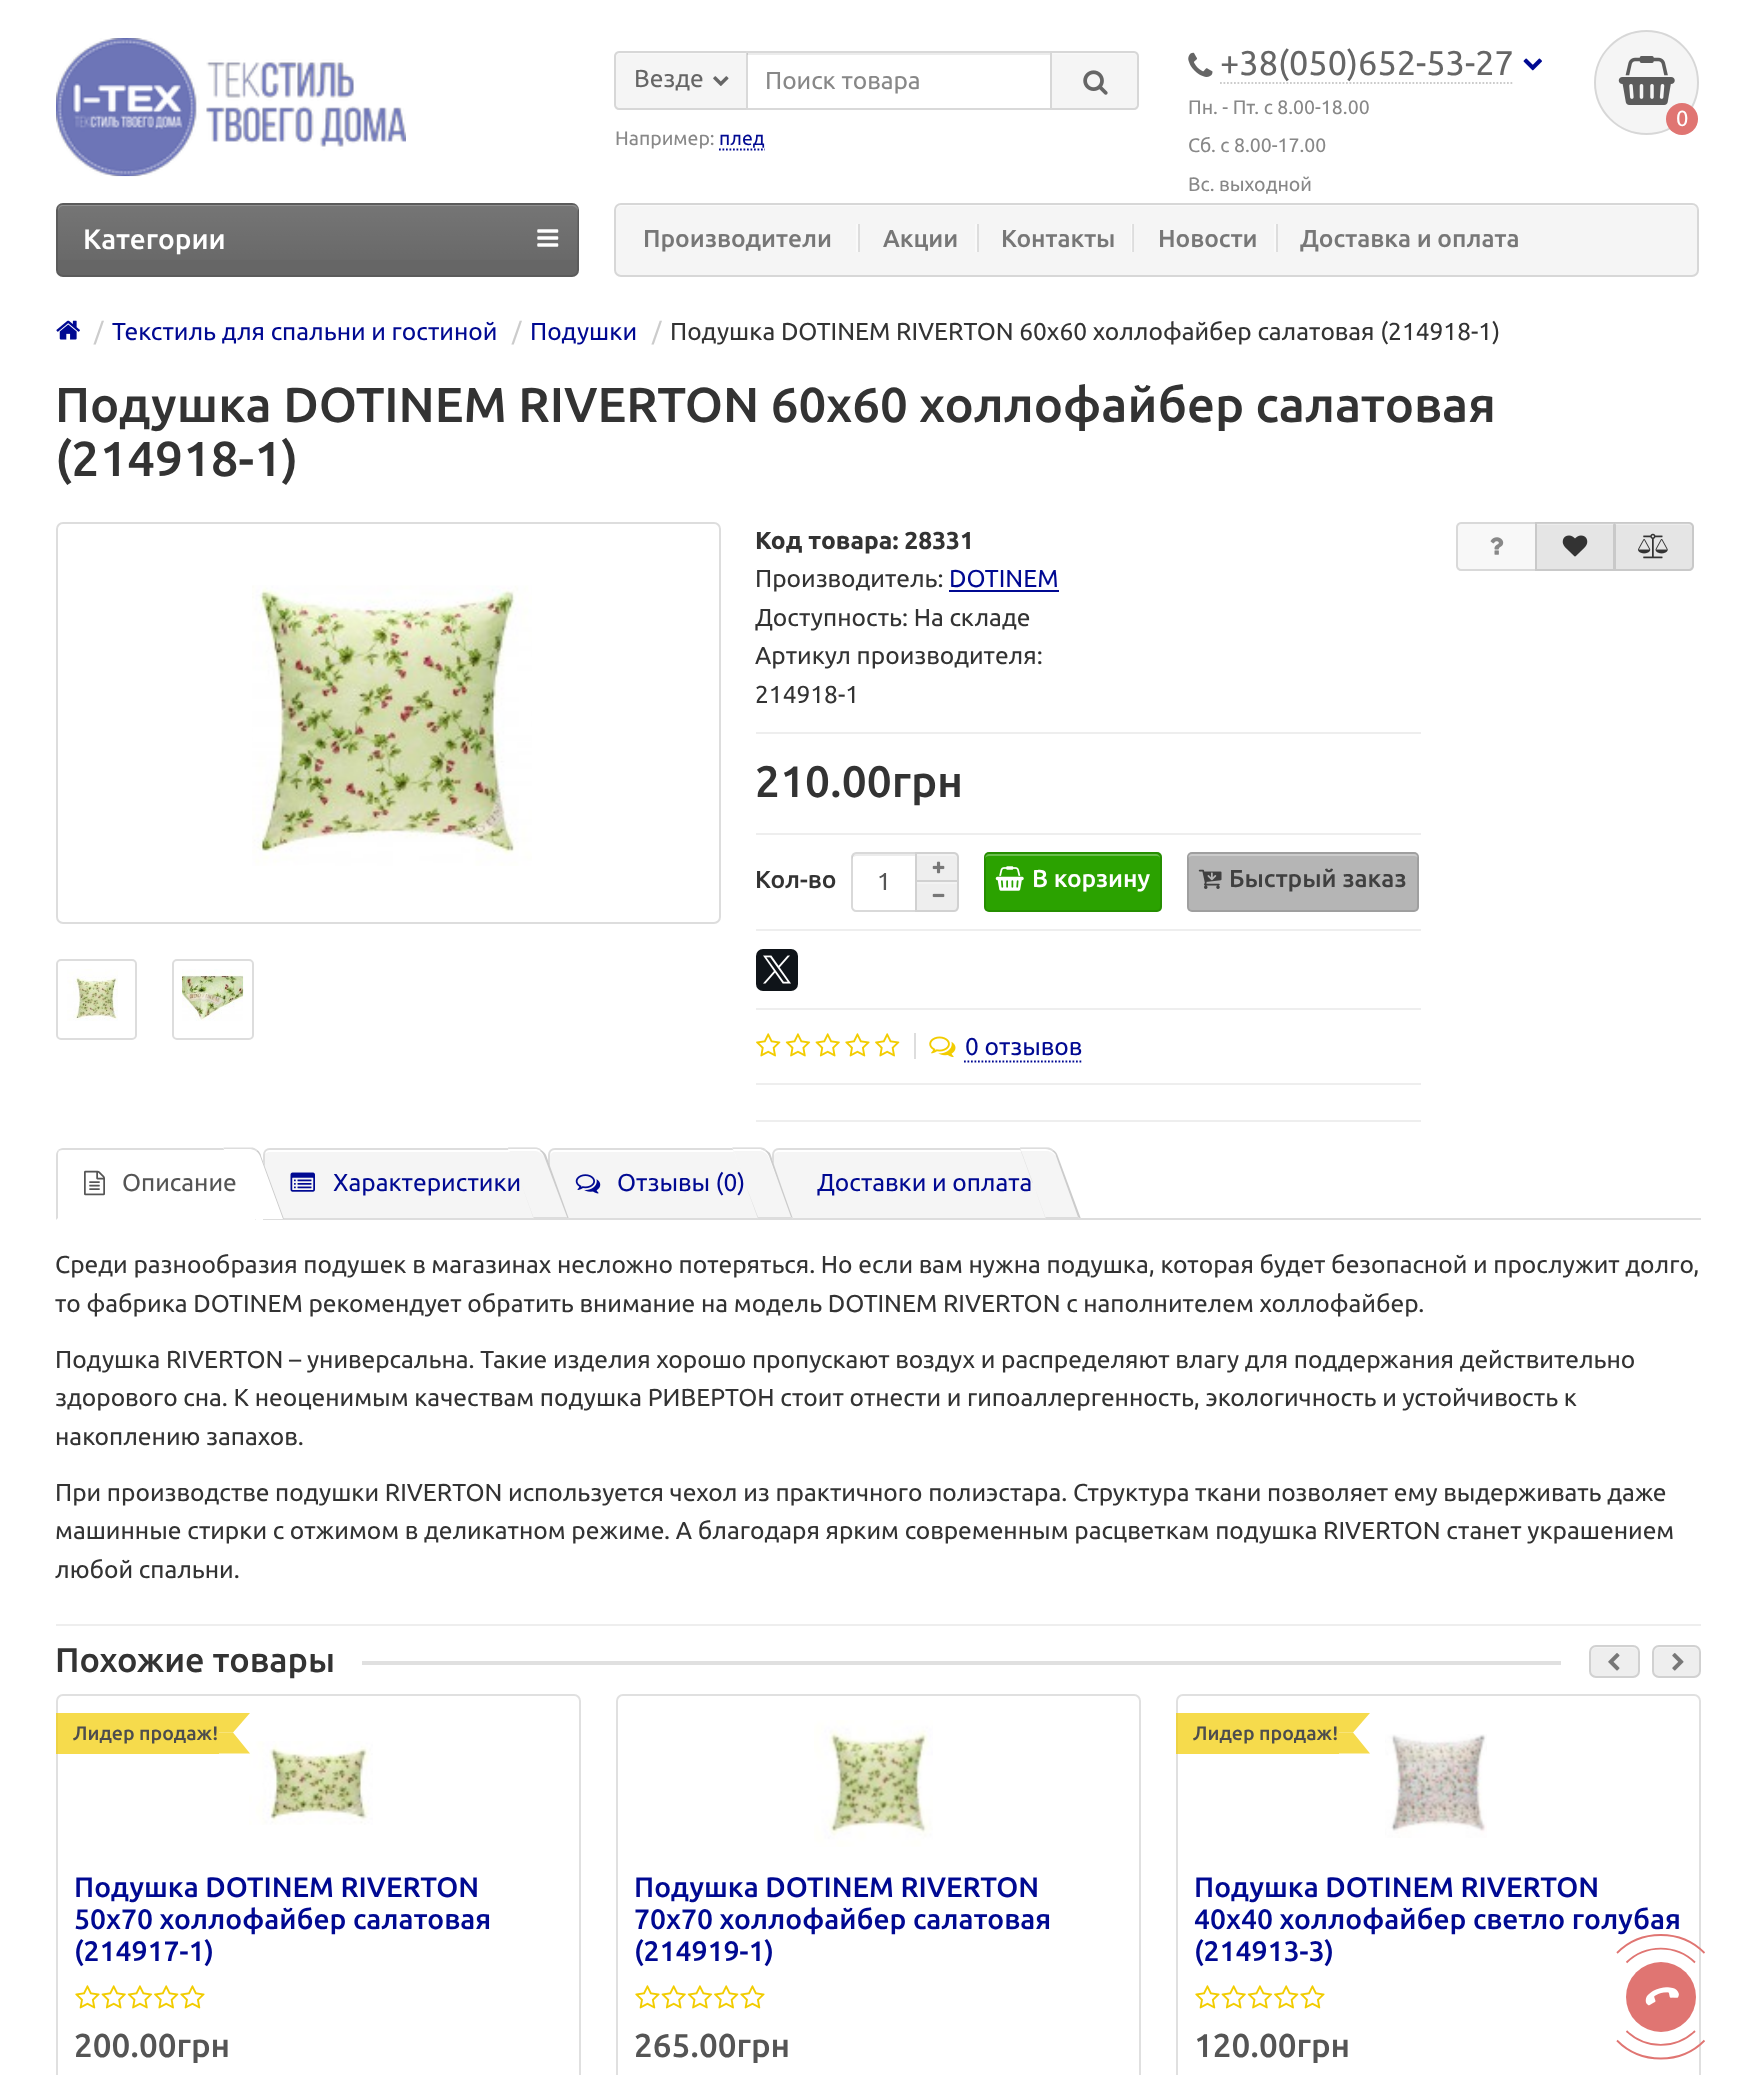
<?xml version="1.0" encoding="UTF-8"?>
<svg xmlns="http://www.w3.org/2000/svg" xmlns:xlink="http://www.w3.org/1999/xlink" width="1755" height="2075">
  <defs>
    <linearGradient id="g1" gradientUnits="userSpaceOnUse" x1="318" y1="205" x2="318" y2="275"><stop offset="0" stop-color="#ffffff" stop-opacity="0.1" /><stop offset="1" stop-color="#ffffff" stop-opacity="0" /></linearGradient>
  </defs>
  <rect width="100%" height="100%" fill="#ffffff" />
  <image x="56" y="38" width="350" height="139" xlink:href="image1.png" />
  <path d="M 619 51 h 130 v 59 h -130 c -3 0 -5 -2 -5 -5 v -49 c 0 -3 2 -5 5 -5 z" fill="#f5f5f5" />
  <path d="M 620 54 h 127 v -1 h -127 c -2 0 -4 2 -4 4 v 1 c 0 -2 2 -4 4 -4 z" fill="#f8f8f8" />
  <path d="M 619 52 h 129 v 57 h -129 c -2 0 -4 -2 -4 -4 v -49 c 0 -2 2 -4 4 -4 z" fill="none" stroke="#000000" stroke-opacity="0.12" stroke-width="2" />
  <image x="713" y="76" width="16" height="10" xlink:href="image2.png" />
  <rect x="746" y="51" width="3" height="59" fill="#ffffff" />
  <rect x="747" y="53" width="303" height="2" fill="#ececec" />
  <rect x="747" y="52" width="304" height="57" fill="none" stroke="#000000" stroke-opacity="0.15" stroke-width="2" />
  <path d="M 1050 51 h 84 c 3 0 5 2 5 5 v 49 c 0 3 -2 5 -5 5 h -84 z" fill="#f5f5f5" />
  <path d="M 1052 54 h 82 c 2 0 4 2 4 4 v -1 c 0 -2 -2 -4 -4 -4 h -82 z" fill="#f8f8f8" />
  <path d="M 1051 52 h 83 c 2 0 4 2 4 4 v 49 c 0 2 -2 4 -4 4 h -83 z" fill="none" stroke="#000000" stroke-opacity="0.12" stroke-width="2" />
  <image x="1083" y="70" width="25" height="25" xlink:href="image3.png" />
  <path d="M 719 149.5 h 46" fill="none" stroke="#000992" stroke-width="1.8" stroke-dasharray="1.75 1.75" />
  <image x="1188" y="52" width="25" height="25" xlink:href="image4.png" />
  <path d="M 1220 83 h 294" fill="none" stroke="#cccccc" stroke-width="1.8" stroke-dasharray="1.75 1.75" />
  <image x="1523" y="58" width="19" height="13" xlink:href="image5.png" />
  <circle cx="1646.5" cy="82.5" r="52.5" fill="#f5f5f5" />
  <circle cx="1646.5" cy="82.5" r="51.5" fill="none" stroke="#000000" stroke-opacity="0.12" stroke-width="2" />
  <image x="1618" y="56" width="57" height="49" xlink:href="image6.png" />
  <circle cx="1682" cy="119" r="16" fill="#e07572" />
  <rect x="56" y="203" width="523" height="74" rx="7" fill="#666666" />
  <path d="M 63 206 h 509 c 3 0 6 3 6 6 v -2 c 0 -3 -2 -5 -5 -5 h -510 c -3 0 -5 2 -5 5 v 2 c 0 -3 2 -6 5 -6 z" fill="#858585" />
  <rect x="57" y="204" width="521" height="72" rx="6" fill="none" stroke="#000000" stroke-opacity="0.1" stroke-width="2" />
  <rect x="58" y="205" width="520" height="55" fill="url(#g1)" />
  <image x="537" y="229" width="22" height="18" xlink:href="image7.png" />
  <rect x="614" y="203" width="1085" height="74" rx="7" fill="#f5f5f5" />
  <rect x="1133" y="224" width="1" height="28" fill="#dddddd" />
  <path d="M 621 206 h 1071 c 3 0 6 3 6 6 v -2 c 0 -3 -2 -5 -5 -5 h -1072 c -3 0 -5 2 -5 5 v 2 c 0 -3 2 -6 5 -6 z" fill="#fafafa" />
  <rect x="615" y="204" width="1083" height="72" rx="6" fill="none" stroke="#000000" stroke-opacity="0.12" stroke-width="2" />
  <rect x="856" y="224" width="2" height="28" fill="#fafafa" />
  <rect x="858" y="224" width="2" height="28" fill="#dddddd" />
  <rect x="975" y="224" width="2" height="28" fill="#fafafa" />
  <rect x="977" y="224" width="2" height="28" fill="#dddddd" />
  <rect x="1131" y="224" width="1" height="28" fill="#fafafa" />
  <rect x="1132" y="224" width="1" height="28" fill="#e1e1e1" />
  <rect x="1274" y="224" width="2" height="28" fill="#fafafa" />
  <rect x="1276" y="224" width="2" height="28" fill="#dddddd" />
  <image x="56" y="320" width="24" height="20" xlink:href="image8.png" />
  <rect x="57" y="523" width="663" height="400" rx="6" fill="none" stroke="#dddddd" stroke-width="2" />
  <image x="252" y="585" width="280" height="281" xlink:href="image9.png" />
  <rect x="57" y="960" width="79" height="79" rx="4" fill="none" stroke="#dddddd" stroke-width="2" />
  <image x="67" y="969" width="51" height="52" xlink:href="image10.png" />
  <rect x="173" y="960" width="80" height="79" rx="4" fill="none" stroke="#dddddd" stroke-width="2" />
  <image x="182" y="969" width="62" height="52" xlink:href="image11.png" />
  <rect x="949" y="590" width="110" height="2" fill="#000992" />
  <rect x="756" y="732" width="665" height="2" fill="#eeeeee" />
  <rect x="756" y="833" width="665" height="2" fill="#eeeeee" />
  <path d="M 856 856 h 59 v -2 h -59 c -2 0 -4 2 -4 4 v 1 l 1 -2 z" fill="#ececec" />
  <path d="M 856 853 h 60 v 58 h -60 c -2 0 -4 -2 -4 -4 v -50 c 0 -2 2 -4 4 -4 z" fill="none" stroke="#000000" stroke-opacity="0.15" stroke-width="2" />
  <path d="M 915 852 h 39 c 3 0 5 2 5 5 v 25 h -44 z" fill="#eeeeee" />
  <path d="M 917 856 h 37 c 2 0 3 1 3 3 v -1 c 0 -2 -2 -4 -4 -4 h -36 z" fill="#f3f3f3" />
  <path d="M 916 853 h 38 c 2 0 4 2 4 4 v 24 h -42 z" fill="none" stroke="#000000" stroke-opacity="0.12" stroke-width="2" />
  <image x="932" y="861" width="13" height="13" xlink:href="image12.png" />
  <path d="M 915 882 h 44 v 25 c 0 3 -2 5 -5 5 h -39 z" fill="#eeeeee" />
  <rect x="917" y="882" width="40" height="2" fill="#f3f3f3" />
  <path d="M 915 882 h 44 v 24 c 0 3 -2 6 -5 6 h -39 z m 2 0 h 40 v 24 c 0 2 -1 4 -3 4 h -37 z" fill="#000000" fill-opacity="0.12" fill-rule="evenodd" />
  <image x="932" y="893" width="13" height="5" xlink:href="image13.png" />
  <rect x="984" y="852" width="178" height="60" rx="5" fill="#2ba200" />
  <path d="M 989 856 h 168 c 2 0 3 1 3 3 v -1 c 0 -2 -2 -4 -4 -4 h -167 c -2 0 -4 2 -4 4 v 1 c 0 -2 2 -3 4 -3 z" fill="#6bbe4d" />
  <rect x="985" y="853" width="176" height="58" rx="4" fill="none" stroke="#000000" stroke-opacity="0.12" stroke-width="2" />
  <image x="995" y="866" width="29" height="25" xlink:href="image14.png" />
  <rect x="1187" y="852" width="232" height="60" rx="5" fill="#b5b5b5" />
  <path d="M 1192 856 h 222 c 2 0 4 1 4 3 c 0 -3 -1 -5 -4 -5 h -222 c -3 0 -4 2 -4 5 c 0 -2 2 -3 4 -3 z" fill="#cbcbcb" />
  <rect x="1188" y="853" width="230" height="58" rx="4" fill="none" stroke="#000000" stroke-opacity="0.12" stroke-width="2" />
  <image x="1198" y="869" width="24" height="20" xlink:href="image15.png" />
  <rect x="756" y="929" width="665" height="2" fill="#eeeeee" />
  <rect x="756" y="949" width="42" height="42" rx="7" fill="#0f1419" />
  <image x="763" y="955" width="28" height="29" xlink:href="image16.png" />
  <rect x="756" y="1008" width="665" height="2" fill="#eeeeee" />
  <image x="756" y="1033" width="25" height="24" xlink:href="image17.png" />
  <image x="785" y="1033" width="26" height="24" xlink:href="image18.png" />
  <image x="815" y="1033" width="25" height="24" xlink:href="image19.png" />
  <image x="845" y="1033" width="25" height="24" xlink:href="image20.png" />
  <image x="875" y="1033" width="25" height="24" xlink:href="image17.png" />
  <rect x="914" y="1033" width="2" height="26" fill="#dddddd" />
  <image x="929" y="1036" width="27" height="22" xlink:href="image21.png" />
  <path d="M 964 1061.5 h 117.5" fill="none" stroke="#000992" stroke-width="1.8" stroke-dasharray="1.75 1.75" />
  <rect x="756" y="1083" width="665" height="2" fill="#eeeeee" />
  <rect x="756" y="1120" width="665" height="2" fill="#eeeeee" />
  <path d="M 1461 522 h 76 v 49 h -76 c -3 0 -5 -2 -5 -5 v -39 c 0 -3 2 -5 5 -5 z" fill="#f8f8f8" />
  <path d="M 1461 523 h 75 v 47 h -75 c -2 0 -4 -2 -4 -4 v -39 c 0 -2 2 -4 4 -4 z" fill="none" stroke="#000000" stroke-opacity="0.12" stroke-width="2" />
  <image x="1490" y="537" width="14" height="18" xlink:href="image22.png" />
  <rect x="1535" y="522" width="79" height="49" fill="#e5e5e5" />
  <rect x="1537" y="523" width="77" height="2" fill="#ededed" />
  <rect x="1536" y="523" width="78" height="47" fill="none" stroke="#000000" stroke-opacity="0.12" stroke-width="2" />
  <image x="1562" y="535" width="26" height="22" xlink:href="image23.png" />
  <path d="M 1614 522 h 75 c 3 0 5 2 5 5 v 39 c 0 3 -2 5 -5 5 h -75 z" fill="#e5e5e5" />
  <path d="M 1615 525 h 74 c 2 0 3 2 3 3 v -1 c 0 -2 -2 -4 -4 -4 h -73 z" fill="#ededed" />
  <path d="M 1615 523 h 74 c 2 0 4 2 4 4 v 39 c 0 2 -2 4 -4 4 h -74 z" fill="none" stroke="#000000" stroke-opacity="0.12" stroke-width="2" />
  <image x="1638" y="533" width="30" height="26" xlink:href="image24.png" />
  <rect x="541" y="1218" width="1160" height="2" fill="#dddddd" />
  <path d="M 63 1148 c -2 0 -4 1 -5 2 l 1 1 c 1 -1 3 -1 4 -1 h 185 c 2 0 3 0 4 1 l 2 -1 c -2 -1 -4 -2 -6 -2 z" fill="#dddddd" />
  <path d="M 254 1150 l 2 3 v 67 l -2 -2 v -64 l -2 -3 z" fill="#dddddd" />
  <path d="M 56 1220 l 2 -2 v -63 c 0 -1 0 -3 1 -4 l -1 -1 c -1 1 -2 3 -2 5 z" fill="#dddddd" />
  <image x="84" y="1170" width="21" height="26" xlink:href="image25.png" />
  <path d="M 270 1148 h 264 c 4 0 7 3 7 7 v 65 h -278 v -65 c 0 -4 3 -7 7 -7 z" fill="#f5f5f5" />
  <path d="M 270 1152 h 264 c 3 0 5 2 5 5 v -2 c 0 -3 -2 -5 -5 -5 h -265 c -3 0 -5 2 -5 5 v 2 c 0 -3 3 -5 6 -5 z" fill="#ffffff" />
  <path d="M 270 1149 h 264 c 3.5 0 6 2.5 6 6 v 64 h -276 v -64 c 0 -3.5 2.5 -6 6 -6 z" fill="none" stroke="#dddddd" stroke-width="2" />
  <image x="290" y="1172" width="25" height="20" xlink:href="image26.png" />
  <path d="M 555 1148 h 203 c 4 0 7 3 7 7 v 65 h -217 v -65 c 0 -4 3 -7 7 -7 z" fill="#f5f5f5" />
  <path d="M 555 1152 h 203 c 3 0 5 2 5 5 v -2 c 0 -3 -2 -5 -5 -5 h -203 c -3 0 -5 2 -5 5 v 2 c 0 -3 2 -5 5 -5 z" fill="#ffffff" />
  <path d="M 555 1149 h 203 c 3.5 0 6 2.5 6 6 v 64 h -215 v -64 c 0 -3.5 2.5 -6 6 -6 z" fill="none" stroke="#dddddd" stroke-width="2" />
  <image x="575" y="1174" width="26" height="20" xlink:href="image27.png" />
  <path d="M 779 1148 h 266 c 4 0 7 3 7 7 v 65 h -280 v -65 c 0 -4 3 -7 7 -7 z" fill="#f5f5f5" />
  <path d="M 779 1152 h 266 c 3 0 5 2 5 5 v -2 c 0 -3 -2 -5 -5 -5 h -266 c -3 0 -5 2 -5 5 v 2 c 0 -3 2 -5 5 -5 z" fill="#ffffff" />
  <path d="M 779 1149 h 266 c 3.5 0 6 2.5 6 6 v 64 h -278 v -64 c 0 -3.5 2.5 -6 6 -6 z" fill="none" stroke="#dddddd" stroke-width="2" />
  <rect x="56" y="1624" width="1645" height="2" fill="#eeeeee" />
  <rect x="362" y="1661" width="1199" height="4" fill="#e0e0e0" />
  <rect x="1589" y="1645" width="51" height="33" rx="7" fill="#eeeeee" />
  <path d="M 1596 1648 h 31 c 8 0 11 1 11 5 c 0 -7 -5 -6 -11 -6 h -25 c -6 0 -11 -1 -11 6 c 0 -3 2 -5 5 -5 z" fill="#f3f3f3" />
  <rect x="1590" y="1646" width="49" height="31" rx="6" fill="none" stroke="#000000" stroke-opacity="0.12" stroke-width="2" />
  <image x="1608" y="1653" width="12" height="18" xlink:href="image28.png" />
  <rect x="1652" y="1645" width="49" height="33" rx="7" fill="#eeeeee" />
  <path d="M 1659 1648 h 35 c 3 0 5 3 5 6 c 0 -8 -4 -7 -11 -7 h -23 c -7 0 -11 -1 -11 7 c 0 -3 2 -6 5 -6 z" fill="#f3f3f3" />
  <rect x="1653" y="1646" width="47" height="31" rx="6" fill="none" stroke="#000000" stroke-opacity="0.12" stroke-width="2" />
  <image x="1672" y="1653" width="12" height="18" xlink:href="image29.png" />
  <rect x="57" y="1695" width="523" height="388" rx="6" fill="none" stroke="#e0e0e0" stroke-width="2" />
  <rect x="56" y="1713" width="163" height="41" fill="#f2cc00" fill-opacity="0.7" />
  <path d="M 219 1713 h 31 l -17 19.5 h -14 z" fill="#f6db4d" />
  <image x="249" y="1741" width="124" height="84" xlink:href="image30.png" />
  <path d="M 250 1753.5 h -31 v -21 h 14 z" fill="#f6db4d" />
  <image x="75" y="1985" width="25" height="24" xlink:href="image31.png" />
  <image x="101" y="1985" width="25" height="24" xlink:href="image32.png" />
  <image x="127" y="1985" width="26" height="24" xlink:href="image33.png" />
  <image x="154" y="1985" width="25" height="24" xlink:href="image34.png" />
  <image x="180" y="1985" width="25" height="24" xlink:href="image31.png" />
  <rect x="617" y="1695" width="523" height="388" rx="6" fill="none" stroke="#e0e0e0" stroke-width="2" />
  <image x="814" y="1720" width="119" height="127" xlink:href="image35.png" />
  <image x="635" y="1985" width="25" height="24" xlink:href="image31.png" />
  <image x="661" y="1985" width="25" height="24" xlink:href="image32.png" />
  <image x="687" y="1985" width="26" height="24" xlink:href="image33.png" />
  <image x="714" y="1985" width="25" height="24" xlink:href="image34.png" />
  <image x="740" y="1985" width="25" height="24" xlink:href="image31.png" />
  <rect x="1177" y="1695" width="523" height="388" rx="6" fill="none" stroke="#e0e0e0" stroke-width="2" />
  <rect x="1176" y="1713" width="163" height="41" fill="#f2cc00" fill-opacity="0.7" />
  <path d="M 1339 1713 h 31 l -17 19.5 h -14 z" fill="#f6db4d" />
  <path d="M 1370 1753.5 h -31 v -21 h 14 z" fill="#f6db4d" />
  <image x="1385" y="1734" width="102" height="104" xlink:href="image36.png" />
  <image x="1195" y="1985" width="25" height="24" xlink:href="image31.png" />
  <image x="1221" y="1985" width="25" height="24" xlink:href="image32.png" />
  <image x="1247" y="1985" width="26" height="24" xlink:href="image33.png" />
  <image x="1274" y="1985" width="25" height="24" xlink:href="image34.png" />
  <image x="1300" y="1985" width="25" height="24" xlink:href="image31.png" />
  <circle cx="1661" cy="1997" r="35" fill="#e07572" />
  <path d="M 1695 2031 c -19 18.5 -49.5 18.5 -68.5 0" fill="none" stroke="#e07572" stroke-width="1.8" />
  <path d="M 1704.5 2040.5 c -23.5 24 -64 24 -87.5 0" fill="none" stroke="#e07572" stroke-width="1.8" />
  <path d="M 1626.5 1962.5 c 19 -18.5 49.5 -18.5 68.5 0" fill="none" stroke="#e07572" stroke-width="1.8" />
  <image x="1645" y="1987" width="34" height="19" xlink:href="image37.png" />
  <text x="634" y="87" style="font-family: Ubuntu; font-size: 24.5px; fill: #666666">Везде</text>
  <text x="765" y="89" style="font-family: Ubuntu; font-size: 24.5px; fill: #888888">Поиск товара</text>
  <text x="615" y="145" style="font-family: Ubuntu; font-size: 19.5px; fill: #888888">Например:</text>
  <text x="719" y="145" style="font-family: Ubuntu; font-size: 19.5px; fill: #000992">плед</text>
  <text x="1220" y="75" style="font-family: Ubuntu; font-size: 34.25px; fill: #666666">+38(050)652-53-27</text>
  <text x="1188" y="114" style="font-family: Ubuntu; font-size: 19.5px; fill: #888888">Пн. - Пт. с 8.00-18.00</text>
  <text x="1188" y="152" style="font-family: Ubuntu; font-size: 19.5px; fill: #888888">Сб. с 8.00-17.00</text>
  <text x="1188" y="191" style="font-family: Ubuntu; font-size: 19.5px; fill: #888888">Вс. выходной</text>
  <text x="1676" y="126" style="font-family: Ubuntu; font-size: 22px; fill: #ffffff">0</text>
  <text x="83" y="249" style="font-family: Ubuntu; font-size: 28px; font-weight: 500; fill: #ffffff">Категории</text>
  <text x="643" y="247" style="font-family: Ubuntu; font-size: 24.5px; font-weight: 500; fill: #777777">Производители</text>
  <text x="883" y="247" style="font-family: Ubuntu; font-size: 24.5px; font-weight: 500; fill: #777777">Акции</text>
  <text x="1001" y="247" style="font-family: Ubuntu; font-size: 24.5px; font-weight: 500; fill: #777777">Контакты</text>
  <text x="1158" y="247" style="font-family: Ubuntu; font-size: 24.5px; font-weight: 500; fill: #777777">Новости</text>
  <text x="1300" y="247" style="font-family: Ubuntu; font-size: 24.5px; font-weight: 500; fill: #777777">Доставка и оплата</text>
  <text x="94" y="340" style="font-family: Ubuntu; font-size: 24.5px; fill: #cccccc">/</text>
  <text x="112" y="340" style="font-family: Ubuntu; font-size: 24.5px; fill: #000992">Текстиль для спальни и гостиной</text>
  <text x="512" y="340" style="font-family: Ubuntu; font-size: 24.5px; fill: #cccccc">/</text>
  <text x="530" y="340" style="font-family: Ubuntu; font-size: 24.5px; fill: #000992">Подушки</text>
  <text x="652" y="340" style="font-family: Ubuntu; font-size: 24.5px; fill: #cccccc">/</text>
  <text x="670" y="340" style="font-family: Ubuntu; font-size: 24.5px; fill: #333333">Подушка DOTINEM RIVERTON 60х60 холлофайбер салатовая (214918-1)</text>
  <text x="55" y="422" style="font-family: Ubuntu; font-size: 49px; font-weight: 500; fill: #333333">Подушка DOTINEM RIVERTON 60х60 холлофайбер салатовая</text>
  <text x="55" y="476" style="font-family: Ubuntu; font-size: 49px; font-weight: 500; fill: #333333">(214918-1)</text>
  <text x="755" y="549" style="font-family: Ubuntu; font-size: 24.5px; font-weight: bold; fill: #333333">Код товара: 28331</text>
  <text x="755" y="587" style="font-family: Ubuntu; font-size: 24.5px; fill: #333333">Производитель:</text>
  <text x="949" y="587" style="font-family: Ubuntu; font-size: 24.5px; fill: #000992">DOTINEM</text>
  <text x="755" y="626" style="font-family: Ubuntu; font-size: 24.5px; fill: #333333">Доступность: На складе</text>
  <text x="755" y="664" style="font-family: Ubuntu; font-size: 24.5px; fill: #333333">Артикул производителя:</text>
  <text x="755" y="703" style="font-family: Ubuntu; font-size: 24.5px; fill: #333333">214918-1</text>
  <text x="755" y="797" style="font-family: Ubuntu; font-size: 44px; font-weight: 500; fill: #333333">210.00грн</text>
  <text x="755" y="888" style="font-family: Ubuntu; font-size: 24.5px; font-weight: 500; fill: #333333">Кол-во</text>
  <text x="877" y="890" style="font-family: Ubuntu; font-size: 24.5px; fill: #555555">1</text>
  <text x="1032" y="887" style="font-family: Ubuntu; font-size: 24.5px; font-weight: 500; fill: #ffffff">В корзину</text>
  <text x="1229" y="887" style="font-family: Ubuntu; font-size: 24.5px; font-weight: 500; fill: #404040">Быстрый заказ</text>
  <text x="965" y="1055" style="font-family: Ubuntu; font-size: 24.5px; fill: #000992">0 отзывов</text>
  <text x="122" y="1191" style="font-family: Ubuntu; font-size: 24.5px; fill: #555555">Описание</text>
  <path d="M 223 1147 h 27 c 4 0 10 4 11 9 l 23 63 h -35 z" fill="#ffffff" />
  <path d="M 224 1149 l 4 11 l -4.5 -12.5 h 28.5 c 1.5 0 3.5 1 5 2 l -1 1.5 c -2 -1 -4 -2 -6 -2 z" fill="#dddddd" />
  <path d="M 257 1150 l -1 1 c 2 1 3 3 4 5 l 23 63 h 1 l -23 -63 c 0 -2 -2 -5 -4 -6 z" fill="#cccccc" />
  <text x="333" y="1191" style="font-family: Ubuntu; font-size: 24.5px; fill: #000992">Характеристики</text>
  <path d="M 508 1147 h 26 c 5 0 10 4 12 9 l 23 63 h -35 z" fill="#f5f5f5" />
  <path d="M 508 1149 l 1 2 h 26 c 4 0 8 3 10 7 c -2 -5 -5 -9 -10 -9 z m 44 29 l 15 39 z m -19 39 l -10 -29 z" fill="#ffffff" fill-rule="evenodd" />
  <path d="M 536.5 1147.5 c 1.5 0 3.5 1 4.5 2 l -0.5 1.5 c -1.5 -1.5 -3.5 -2 -5.5 -2 h -26.5 l -0.5 -1.5 z m -15.5 35.5 l -12.5 -34 z" fill="#dddddd" fill-rule="evenodd" />
  <path d="M 569 1219 l -3 -2 h 1 l -23 -61 c -1 -2 -2 -4 -4 -5 l 1 -1 c 2 1 4 3 5 5 z" fill="#cccccc" />
  <path d="M 569 1219 l -3 -2 h -33 l -12 -34 l 13 36 z" fill="#dddddd" />
  <text x="617" y="1191" style="font-family: Ubuntu; font-size: 24.5px; fill: #000992">Отзывы (0)</text>
  <path d="M 732 1147 h 27 c 4 0 10 4 12 9 l 22 63 h -35 z" fill="#f5f5f5" />
  <path d="M 734 1151 h 26 c 4 0 8 3 9 7 l 15 39 l -15 -41 c -2 -4 -6 -7 -10 -7 h -26 l 10 28 z" fill="#ffffff" />
  <path d="M 733 1149 l 12.5 34 l -13 -35.5 h 28.5 c 1.5 0 3.5 1 5 2 l -1 1.5 c -2 -1 -4 -2 -6 -2 z" fill="#dddddd" />
  <path d="M 782 1188 l 11 31 l -2 -2 l -22 -61 c -1 -2 -2 -4 -4 -5 l 1 -1 l 4 3 z" fill="#cccccc" />
  <path d="M 793 1219 h -35 l -13 -36 l 13 34 h 33 z" fill="#dddddd" />
  <text x="817" y="1191" style="font-family: Ubuntu; font-size: 24.5px; fill: #000992">Доставки и оплата</text>
  <path d="M 1020 1147 h 26 c 5 0 10 4 12 9 l 23 63 h -35 z" fill="#f5f5f5" />
  <path d="M 1021 1151 h 26 c 3 0 7 2 9 6 c -3 -9 -11 -8 -18 -8 h -18 l 25 68 z" fill="#ffffff" />
  <path d="M 1048.5 1147.5 c 1.5 0 3 1 4.5 2 l -1 1.5 c -1.5 -1 -4 -2 -6 -2 h -25.5 l -0.5 -1.5 z m -15.5 35.5 h -0.5 l -12.5 -34 h 0.5 z" fill="#dddddd" fill-rule="evenodd" />
  <path d="M 1081 1219 l -3 -2 l -22 -61 c 0 -2 -2 -4 -4 -5 l 1 -1 c 2 1 3 2 4 4 z" fill="#cccccc" />
  <path d="M 1081 1219 l -3 -2 h -33 l -12 -34 l 13 36 z" fill="#dddddd" />
  <text x="55" y="1273" style="font-family: Ubuntu; font-size: 24.5px; fill: #333333">Среди разнообразия подушек в магазинах несложно потеряться. Но если вам нужна подушка, которая будет безопасной и прослужит долго,</text>
  <text x="55" y="1312" style="font-family: Ubuntu; font-size: 24.5px; fill: #333333">то фабрика DOTINEM рекомендует обратить внимание на модель DOTINEM RIVERTON с наполнителем холлофайбер.</text>
  <text x="55" y="1368" style="font-family: Ubuntu; font-size: 24.5px; fill: #333333">Подушка RIVERTON – универсальна. Такие изделия хорошо пропускают воздух и распределяют влагу для поддержания действительно</text>
  <text x="55" y="1406" style="font-family: Ubuntu; font-size: 24.5px; fill: #333333">здорового сна. К неоценимым качествам подушка РИВЕРТОН стоит отнести и гипоаллергенность, экологичность и устойчивость к</text>
  <text x="55" y="1445" style="font-family: Ubuntu; font-size: 24.5px; fill: #333333">накоплению запахов.</text>
  <text x="55" y="1501" style="font-family: Ubuntu; font-size: 24.5px; fill: #333333">При производстве подушки RIVERTON используется чехол из практичного полиэстара. Структура ткани позволяет ему выдерживать даже</text>
  <text x="55" y="1539" style="font-family: Ubuntu; font-size: 24.5px; fill: #333333">машинные стирки с отжимом в деликатном режиме. А благодаря ярким современным расцветкам подушка RIVERTON станет украшением</text>
  <text x="55" y="1578" style="font-family: Ubuntu; font-size: 24.5px; fill: #333333">любой спальни.</text>
  <text x="55" y="1672" style="font-family: Ubuntu; font-size: 34.25px; font-weight: 500; fill: #333333">Похожие товары</text>
  <text x="73" y="1740" style="font-family: Ubuntu; font-size: 19.5px; font-weight: 500; fill: #4d4d4d">Лидер продаж!</text>
  <text x="74" y="1897" style="font-family: Ubuntu; font-size: 28.2px; font-weight: 500; fill: #000992">Подушка DOTINEM RIVERTON</text>
  <text x="74" y="1929" style="font-family: Ubuntu; font-size: 28.2px; font-weight: 500; fill: #000992">50х70 холлофайбер салатовая</text>
  <text x="74" y="1961" style="font-family: Ubuntu; font-size: 28.2px; font-weight: 500; fill: #000992">(214917-1)</text>
  <text x="74" y="2057" style="font-family: Ubuntu; font-size: 33px; font-weight: 500; fill: #555555">200.00грн</text>
  <text x="634" y="1897" style="font-family: Ubuntu; font-size: 28.2px; font-weight: 500; fill: #000992">Подушка DOTINEM RIVERTON</text>
  <text x="634" y="1929" style="font-family: Ubuntu; font-size: 28.2px; font-weight: 500; fill: #000992">70х70 холлофайбер салатовая</text>
  <text x="634" y="1961" style="font-family: Ubuntu; font-size: 28.2px; font-weight: 500; fill: #000992">(214919-1)</text>
  <text x="634" y="2057" style="font-family: Ubuntu; font-size: 33px; font-weight: 500; fill: #555555">265.00грн</text>
  <text x="1193" y="1740" style="font-family: Ubuntu; font-size: 19.5px; font-weight: 500; fill: #4d4d4d">Лидер продаж!</text>
  <text x="1194" y="1897" style="font-family: Ubuntu; font-size: 28.2px; font-weight: 500; fill: #000992">Подушка DOTINEM RIVERTON</text>
  <text x="1194" y="1929" style="font-family: Ubuntu; font-size: 28.2px; font-weight: 500; fill: #000992">40х40 холлофайбер светло голубая</text>
  <text x="1194" y="1961" style="font-family: Ubuntu; font-size: 28.2px; font-weight: 500; fill: #000992">(214913-3)</text>
  <text x="1194" y="2057" style="font-family: Ubuntu; font-size: 33px; font-weight: 500; fill: #555555">120.00грн</text>
  <path d="M 1617 1953 c 23.5 -24 64 -24 87.5 0" fill="none" stroke="#e07572" stroke-width="1.8" />
</svg>
